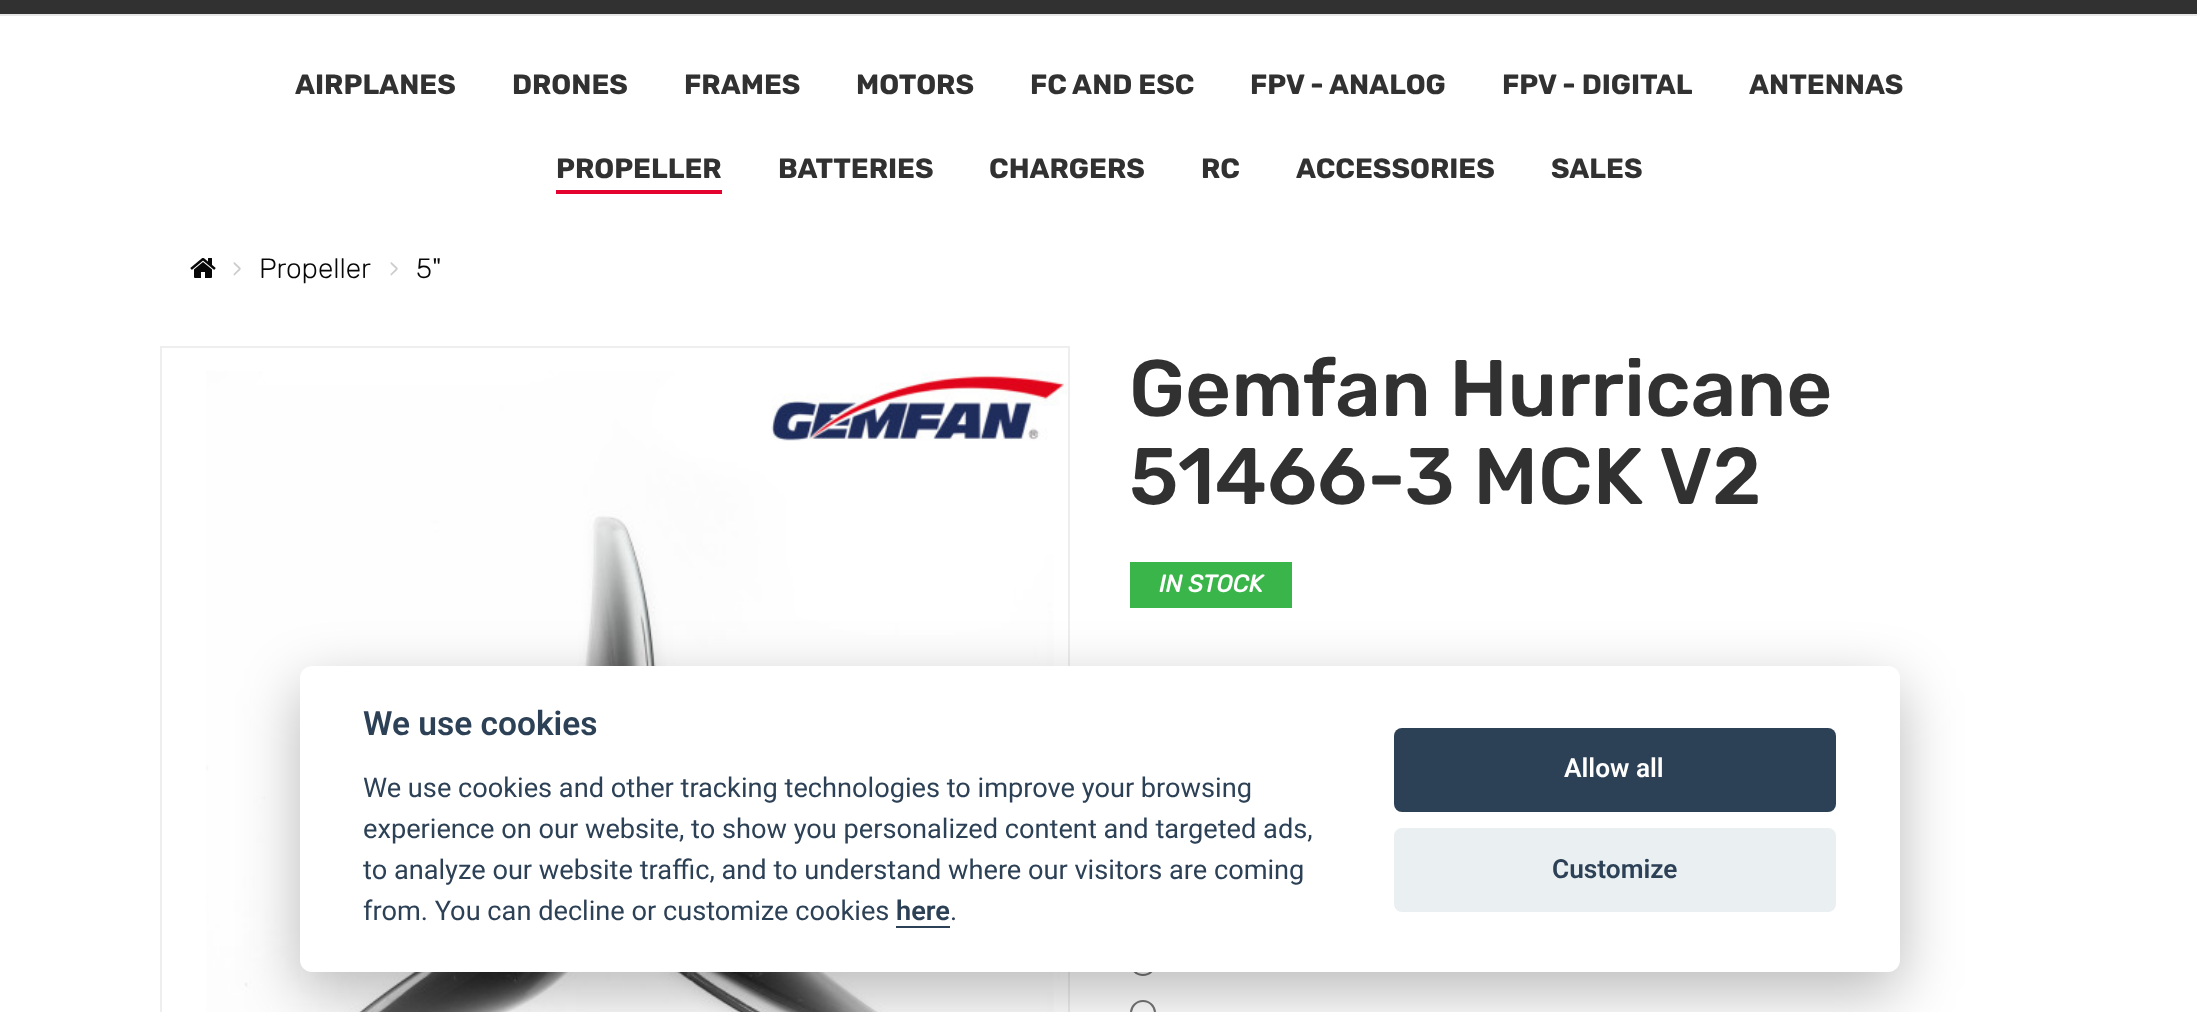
<?xml version="1.0" encoding="UTF-8"?>
<svg xmlns="http://www.w3.org/2000/svg" xmlns:xlink="http://www.w3.org/1999/xlink" width="2197" height="1012">
  <rect width="100%" height="100%" fill="#ffffff" />
  <rect width="2197" height="14" fill="#313131" />
  <rect y="14" width="2197" height="2" fill="#e7e7e7" />
  <rect x="556" y="190" width="166" height="4" fill="#e4022e" />
  <image x="190" y="258" width="26" height="20" xlink:href="image1.png" />
  <rect x="161" y="347" width="908" height="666" fill="none" stroke="#eeeeee" stroke-width="2" />
  <image x="206" y="371" width="862" height="641" xlink:href="image2.png" />
  <rect x="1130" y="562" width="162" height="46" fill="#3ab54a" />
  <circle cx="1143" cy="963" r="12" fill="none" stroke="#767676" stroke-width="2" />
  <circle cx="1143" cy="1013" r="12" fill="none" stroke="#767676" stroke-width="2" />
  <rect x="300" y="686" width="1600" height="306" rx="12" fill="#020203" fill-opacity="0.28" filter="blur(30px)" />
  <rect x="300" y="666" width="1600" height="306" rx="12" fill="#ffffff" />
  <rect x="896" y="926" width="54" height="2" fill="#2d4156" />
  <rect x="1394" y="728" width="442" height="84" rx="8" fill="#2d4156" />
  <rect x="1394" y="828" width="442" height="84" rx="8" fill="#eaeff2" />
  <text x="295" y="94" style="font-family: Rubik; font-size: 28px; font-weight: bold; fill: #313131">AIRPLANES</text>
  <text x="512" y="94" style="font-family: Rubik; font-size: 28px; font-weight: bold; fill: #313131">DRONES</text>
  <text x="684" y="94" style="font-family: Rubik; font-size: 28px; font-weight: bold; fill: #313131">FRAMES</text>
  <text x="856" y="94" style="font-family: Rubik; font-size: 28px; font-weight: bold; fill: #313131">MOTORS</text>
  <text x="1030" y="94" style="font-family: Rubik; font-size: 28px; font-weight: bold; fill: #313131">FC AND ESC</text>
  <text x="1250" y="94" style="font-family: Rubik; font-size: 28px; font-weight: bold; fill: #313131">FPV - ANALOG</text>
  <text x="1502" y="94" style="font-family: Rubik; font-size: 28px; font-weight: bold; fill: #313131">FPV - DIGITAL</text>
  <text x="1749" y="94" style="font-family: Rubik; font-size: 28px; font-weight: bold; fill: #313131">ANTENNAS</text>
  <text x="556" y="178" style="font-family: Rubik; font-size: 28px; font-weight: bold; fill: #313131">PROPELLER</text>
  <text x="778" y="178" style="font-family: Rubik; font-size: 28px; font-weight: bold; fill: #313131">BATTERIES</text>
  <text x="989" y="178" style="font-family: Rubik; font-size: 28px; font-weight: bold; fill: #313131">CHARGERS</text>
  <text x="1201" y="178" style="font-family: Rubik; font-size: 28px; font-weight: bold; fill: #313131">RC</text>
  <text x="1296" y="178" style="font-family: Rubik; font-size: 28px; font-weight: bold; fill: #313131">ACCESSORIES</text>
  <text x="1551" y="178" style="font-family: Rubik; font-size: 28px; font-weight: bold; fill: #313131">SALES</text>
  <text x="232" y="278" style="font-family: Rubik; font-size: 28px; font-weight: 300; fill: #cccccc">›</text>
  <text x="259" y="278" style="font-family: Rubik; font-size: 28px; font-weight: 300; fill: #070707">Propeller</text>
  <text x="389" y="278" style="font-family: Rubik; font-size: 28px; font-weight: 300; fill: #cccccc">›</text>
  <text x="416" y="278" style="font-family: Rubik; font-size: 28px; font-weight: 300; fill: #070707">5"</text>
  <text x="1129" y="416" style="font-family: Rubik; font-size: 80px; font-weight: 500; fill: #313131">Gemfan Hurricane</text>
  <text x="1129" y="504" style="font-family: Rubik; font-size: 80px; font-weight: 500; fill: #313131">51466-3 MCK V2</text>
  <text x="1159" y="592" style="font-family: Rubik; font-size: 24px; font-weight: bold; font-style: italic; fill: #ffffff">IN STOCK</text>
  <text x="363" y="735" style="font-family: Roboto; font-size: 33.5px; font-weight: 600; fill: #2d4156">We use cookies</text>
  <text x="363" y="797" style="font-family: Roboto; font-size: 27.2px; fill: #2d4156">We use cookies and other tracking technologies to improve your browsing</text>
  <text x="363" y="838" style="font-family: Roboto; font-size: 27.2px; fill: #2d4156">experience on our website, to show you personalized content and targeted ads,</text>
  <text x="363" y="879" style="font-family: Roboto; font-size: 27.2px; fill: #2d4156">to analyze our website traffic, and to understand where our visitors are coming</text>
  <text x="363" y="920" style="font-family: Roboto; font-size: 27.2px; fill: #2d4156">from. You can decline or customize cookies</text>
  <text x="896" y="920" style="font-family: Roboto; font-size: 27.2px; font-weight: 600; fill: #2d4156">here</text>
  <text x="950" y="920" style="font-family: Roboto; font-size: 27.2px; fill: #2d4156">.</text>
  <text x="1564" y="777" style="font-family: Roboto; font-size: 26.25px; font-weight: 600; fill: #ffffff">Allow all</text>
  <text x="1552" y="878" style="font-family: Roboto; font-size: 26.25px; font-weight: 600; fill: #2d4156">Customize</text>
</svg>
